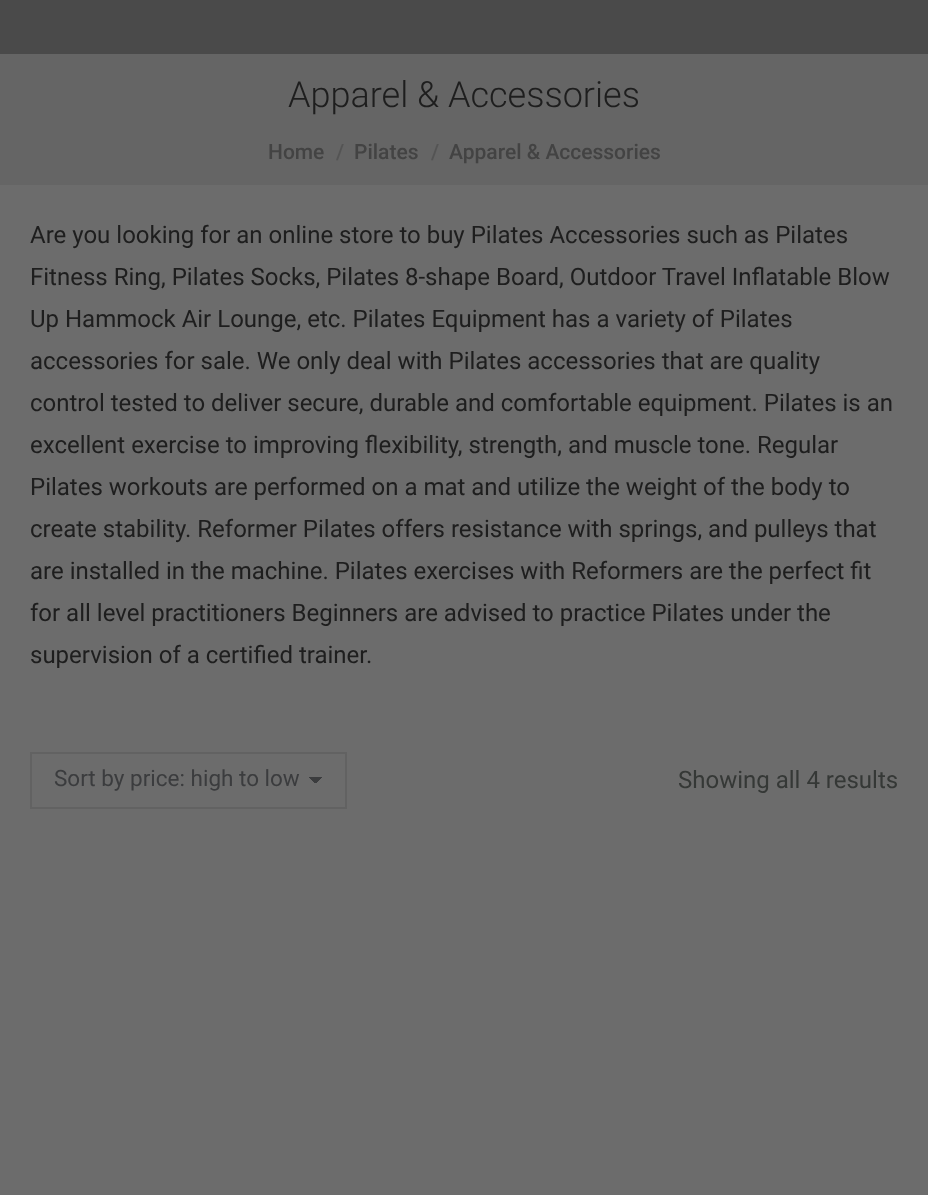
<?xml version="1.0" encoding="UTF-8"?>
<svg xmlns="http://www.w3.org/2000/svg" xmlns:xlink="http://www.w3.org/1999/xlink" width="928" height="1195">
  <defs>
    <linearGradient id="g1" gradientUnits="userSpaceOnUse" x1="315" y1="776" x2="323" y2="784"><stop offset="0.5" stop-color="#3b3c3e" /><stop offset="0.5" stop-color="#6c6c6c" /></linearGradient>
    <linearGradient id="g2" gradientUnits="userSpaceOnUse" x1="308" y1="784" x2="315" y2="776"><stop offset="0.5" stop-color="#6c6c6c" /><stop offset="0.5" stop-color="#3b3c3e" /></linearGradient>
  </defs>
  <rect width="100%" height="100%" fill="#6c6c6c" />
  <rect width="928" height="54" fill="#4a4a4a" />
  <rect y="54" width="928" height="131" fill="#656565" />
  <rect x="315" y="777" width="8" height="6" fill="url(#g1)" />
  <rect x="309" y="777" width="6" height="8" fill="url(#g2)" />
  <rect x="31" y="753" width="315" height="55" fill="none" stroke="#626262" stroke-width="2" />
  <text x="288" y="107" style="font-family: Roboto; font-size: 36px; font-weight: 300; fill: #1e1e1e">Apparel &amp; Accessories</text>
  <text x="268" y="159" style="font-family: Roboto; font-size: 21px; font-weight: 500; fill: #434343">Home</text>
  <text x="336" y="159" style="font-family: Roboto; font-size: 21px; font-weight: 500; fill: #545454">/</text>
  <text x="354" y="159" style="font-family: Roboto; font-size: 21px; font-weight: 500; fill: #434343">Pilates</text>
  <text x="431" y="159" style="font-family: Roboto; font-size: 21px; font-weight: 500; fill: #545454">/</text>
  <text x="449" y="159" style="font-family: Roboto; font-size: 21px; font-weight: 500; fill: #434343">Apparel &amp; Accessories</text>
  <text x="30" y="243" style="font-family: Roboto; font-size: 24px; fill: #1e1e1e">Are you looking for an online store to buy Pilates Accessories such as Pilates</text>
  <text x="30" y="285" style="font-family: Roboto; font-size: 24px; fill: #1e1e1e">Fitness Ring, Pilates Socks, Pilates 8-shape Board, Outdoor Travel Inflatable Blow</text>
  <text x="30" y="327" style="font-family: Roboto; font-size: 24px; fill: #1e1e1e">Up Hammock Air Lounge, etc. Pilates Equipment has a variety of Pilates</text>
  <text x="30" y="369" style="font-family: Roboto; font-size: 24px; fill: #1e1e1e">accessories for sale. We only deal with Pilates accessories that are quality</text>
  <text x="30" y="411" style="font-family: Roboto; font-size: 24px; fill: #1e1e1e">control tested to deliver secure, durable and comfortable equipment. Pilates is an</text>
  <text x="30" y="453" style="font-family: Roboto; font-size: 24px; fill: #1e1e1e">excellent exercise to improving flexibility, strength, and muscle tone. Regular</text>
  <text x="30" y="495" style="font-family: Roboto; font-size: 24px; fill: #1e1e1e">Pilates workouts are performed on a mat and utilize the weight of the body to</text>
  <text x="30" y="537" style="font-family: Roboto; font-size: 24px; fill: #1e1e1e">create stability. Reformer Pilates offers resistance with springs, and pulleys that</text>
  <text x="30" y="579" style="font-family: Roboto; font-size: 24px; fill: #1e1e1e">are installed in the machine. Pilates exercises with Reformers are the perfect fit</text>
  <text x="30" y="621" style="font-family: Roboto; font-size: 24px; fill: #1e1e1e">for all level practitioners Beginners are advised to practice Pilates under the</text>
  <text x="30" y="663" style="font-family: Roboto; font-size: 24px; fill: #1e1e1e">supervision of a certified trainer.</text>
  <text x="54" y="786" style="font-family: Roboto; font-size: 22.5px; fill: #3b3c3e">Sort by price: high to low</text>
  <text x="678" y="788" style="font-family: Roboto; font-size: 24px; fill: #353836">Showing all 4 results</text>
</svg>
